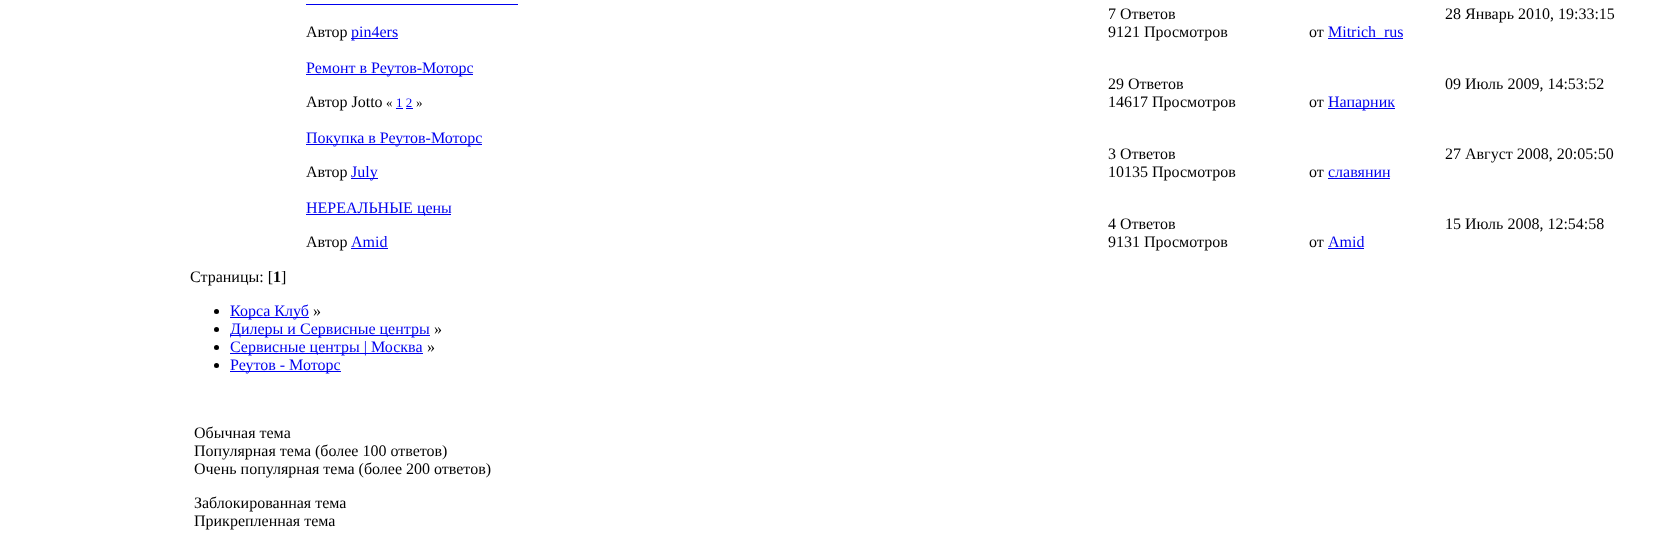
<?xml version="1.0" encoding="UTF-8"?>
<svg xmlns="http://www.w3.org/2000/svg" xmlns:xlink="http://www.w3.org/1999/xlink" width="1673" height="533">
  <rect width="100%" height="100%" fill="#ffffff" />
  <rect x="306" y="4" width="212" height="1" fill="#0000ee" />
  <rect x="351" y="38" width="47" height="1" fill="#0000ee" />
  <rect x="1328" y="38" width="75" height="1" fill="#0000ee" />
  <rect x="306" y="74" width="167" height="1" fill="#0000ee" />
  <rect x="396" y="108" width="7" height="1" fill="#0000ee" />
  <rect x="406" y="108" width="7" height="1" fill="#0000ee" />
  <rect x="1328" y="108" width="67" height="1" fill="#0000ee" />
  <rect x="306" y="144" width="176" height="1" fill="#0000ee" />
  <rect x="351" y="178" width="27" height="1" fill="#0000ee" />
  <rect x="1328" y="178" width="62" height="1" fill="#0000ee" />
  <rect x="306" y="214" width="145" height="1" fill="#0000ee" />
  <rect x="351" y="248" width="37" height="1" fill="#0000ee" />
  <rect x="1328" y="248" width="36" height="1" fill="#0000ee" />
  <circle cx="216.5" cy="311.5" r="2.5" fill="#000000" />
  <rect x="230" y="317" width="79" height="1" fill="#0000ee" />
  <circle cx="216.5" cy="329.5" r="2.5" fill="#000000" />
  <rect x="230" y="335" width="200" height="1" fill="#0000ee" />
  <circle cx="216.5" cy="347.5" r="2.5" fill="#000000" />
  <rect x="230" y="353" width="193" height="1" fill="#0000ee" />
  <circle cx="216.5" cy="365.5" r="2.5" fill="#000000" />
  <rect x="230" y="371" width="111" height="1" fill="#0000ee" />
  <text x="306" y="37" style="font-family: Liberation Serif; font-size: 16px; fill: #000000">Автор</text>
  <text x="351" y="37" style="font-family: Liberation Serif; font-size: 16px; fill: #0000ee">pin4ers</text>
  <text x="1108" y="19" style="font-family: Liberation Serif; font-size: 16px; fill: #000000">7 Ответов</text>
  <text x="1108" y="37" style="font-family: Liberation Serif; font-size: 16px; fill: #000000">9121 Просмотров</text>
  <text x="1445" y="19" style="font-family: Liberation Serif; font-size: 16px; fill: #000000">28 Январь 2010, 19:33:15</text>
  <text x="1309" y="37" style="font-family: Liberation Serif; font-size: 16px; fill: #000000">от</text>
  <text x="1328" y="37" style="font-family: Liberation Serif; font-size: 16px; fill: #0000ee">Mitrich_rus</text>
  <text x="306" y="73" style="font-family: Liberation Serif; font-size: 16px; fill: #0000ee">Ремонт в Реутов-Моторс</text>
  <text x="306" y="107" style="font-family: Liberation Serif; font-size: 16px; fill: #000000">Автор Jotto</text>
  <text x="386" y="107" style="font-family: Liberation Serif; font-size: 13px; fill: #000000">«</text>
  <text x="396" y="107" style="font-family: Liberation Serif; font-size: 13px; fill: #0000ee">1 2</text>
  <text x="416" y="107" style="font-family: Liberation Serif; font-size: 13px; fill: #000000">»</text>
  <text x="1108" y="89" style="font-family: Liberation Serif; font-size: 16px; fill: #000000">29 Ответов</text>
  <text x="1108" y="107" style="font-family: Liberation Serif; font-size: 16px; fill: #000000">14617 Просмотров</text>
  <text x="1445" y="89" style="font-family: Liberation Serif; font-size: 16px; fill: #000000">09 Июль 2009, 14:53:52</text>
  <text x="1309" y="107" style="font-family: Liberation Serif; font-size: 16px; fill: #000000">от</text>
  <text x="1328" y="107" style="font-family: Liberation Serif; font-size: 16px; fill: #0000ee">Напарник</text>
  <text x="306" y="143" style="font-family: Liberation Serif; font-size: 16px; fill: #0000ee">Покупка в Реутов-Моторс</text>
  <text x="306" y="177" style="font-family: Liberation Serif; font-size: 16px; fill: #000000">Автор</text>
  <text x="351" y="177" style="font-family: Liberation Serif; font-size: 16px; fill: #0000ee">July</text>
  <text x="1108" y="159" style="font-family: Liberation Serif; font-size: 16px; fill: #000000">3 Ответов</text>
  <text x="1108" y="177" style="font-family: Liberation Serif; font-size: 16px; fill: #000000">10135 Просмотров</text>
  <text x="1445" y="159" style="font-family: Liberation Serif; font-size: 16px; fill: #000000">27 Август 2008, 20:05:50</text>
  <text x="1309" y="177" style="font-family: Liberation Serif; font-size: 16px; fill: #000000">от</text>
  <text x="1328" y="177" style="font-family: Liberation Serif; font-size: 16px; fill: #0000ee">славянин</text>
  <text x="306" y="213" style="font-family: Liberation Serif; font-size: 16px; fill: #0000ee">НЕРЕАЛЬНЫЕ цены</text>
  <text x="306" y="247" style="font-family: Liberation Serif; font-size: 16px; fill: #000000">Автор</text>
  <text x="351" y="247" style="font-family: Liberation Serif; font-size: 16px; fill: #0000ee">Amid</text>
  <text x="1108" y="229" style="font-family: Liberation Serif; font-size: 16px; fill: #000000">4 Ответов</text>
  <text x="1108" y="247" style="font-family: Liberation Serif; font-size: 16px; fill: #000000">9131 Просмотров</text>
  <text x="1445" y="229" style="font-family: Liberation Serif; font-size: 16px; fill: #000000">15 Июль 2008, 12:54:58</text>
  <text x="1309" y="247" style="font-family: Liberation Serif; font-size: 16px; fill: #000000">от</text>
  <text x="1328" y="247" style="font-family: Liberation Serif; font-size: 16px; fill: #0000ee">Amid</text>
  <text x="190" y="282" style="font-family: Liberation Serif; font-size: 16px; fill: #000000">Страницы: [</text>
  <text x="273" y="282" style="font-family: Liberation Serif; font-size: 16px; font-weight: bold; fill: #000000">1</text>
  <text x="281" y="282" style="font-family: Liberation Serif; font-size: 16px; fill: #000000">]</text>
  <text x="230" y="316" style="font-family: Liberation Serif; font-size: 16px; fill: #0000ee">Корса Клуб</text>
  <text x="313" y="316" style="font-family: Liberation Serif; font-size: 16px; fill: #000000">»</text>
  <text x="230" y="334" style="font-family: Liberation Serif; font-size: 16px; fill: #0000ee">Дилеры и Сервисные центры</text>
  <text x="434" y="334" style="font-family: Liberation Serif; font-size: 16px; fill: #000000">»</text>
  <text x="230" y="352" style="font-family: Liberation Serif; font-size: 16px; fill: #0000ee">Сервисные центры | Москва</text>
  <text x="427" y="352" style="font-family: Liberation Serif; font-size: 16px; fill: #000000">»</text>
  <text x="230" y="370" style="font-family: Liberation Serif; font-size: 16px; fill: #0000ee">Реутов - Моторс</text>
  <text x="194" y="438" style="font-family: Liberation Serif; font-size: 16px; fill: #000000">Обычная тема</text>
  <text x="194" y="456" style="font-family: Liberation Serif; font-size: 16px; fill: #000000">Популярная тема (более 100 ответов)</text>
  <text x="194" y="474" style="font-family: Liberation Serif; font-size: 16px; fill: #000000">Очень популярная тема (более 200 ответов)</text>
  <text x="194" y="508" style="font-family: Liberation Serif; font-size: 16px; fill: #000000">Заблокированная тема</text>
  <text x="194" y="526" style="font-family: Liberation Serif; font-size: 16px; fill: #000000">Прикрепленная тема</text>
</svg>
